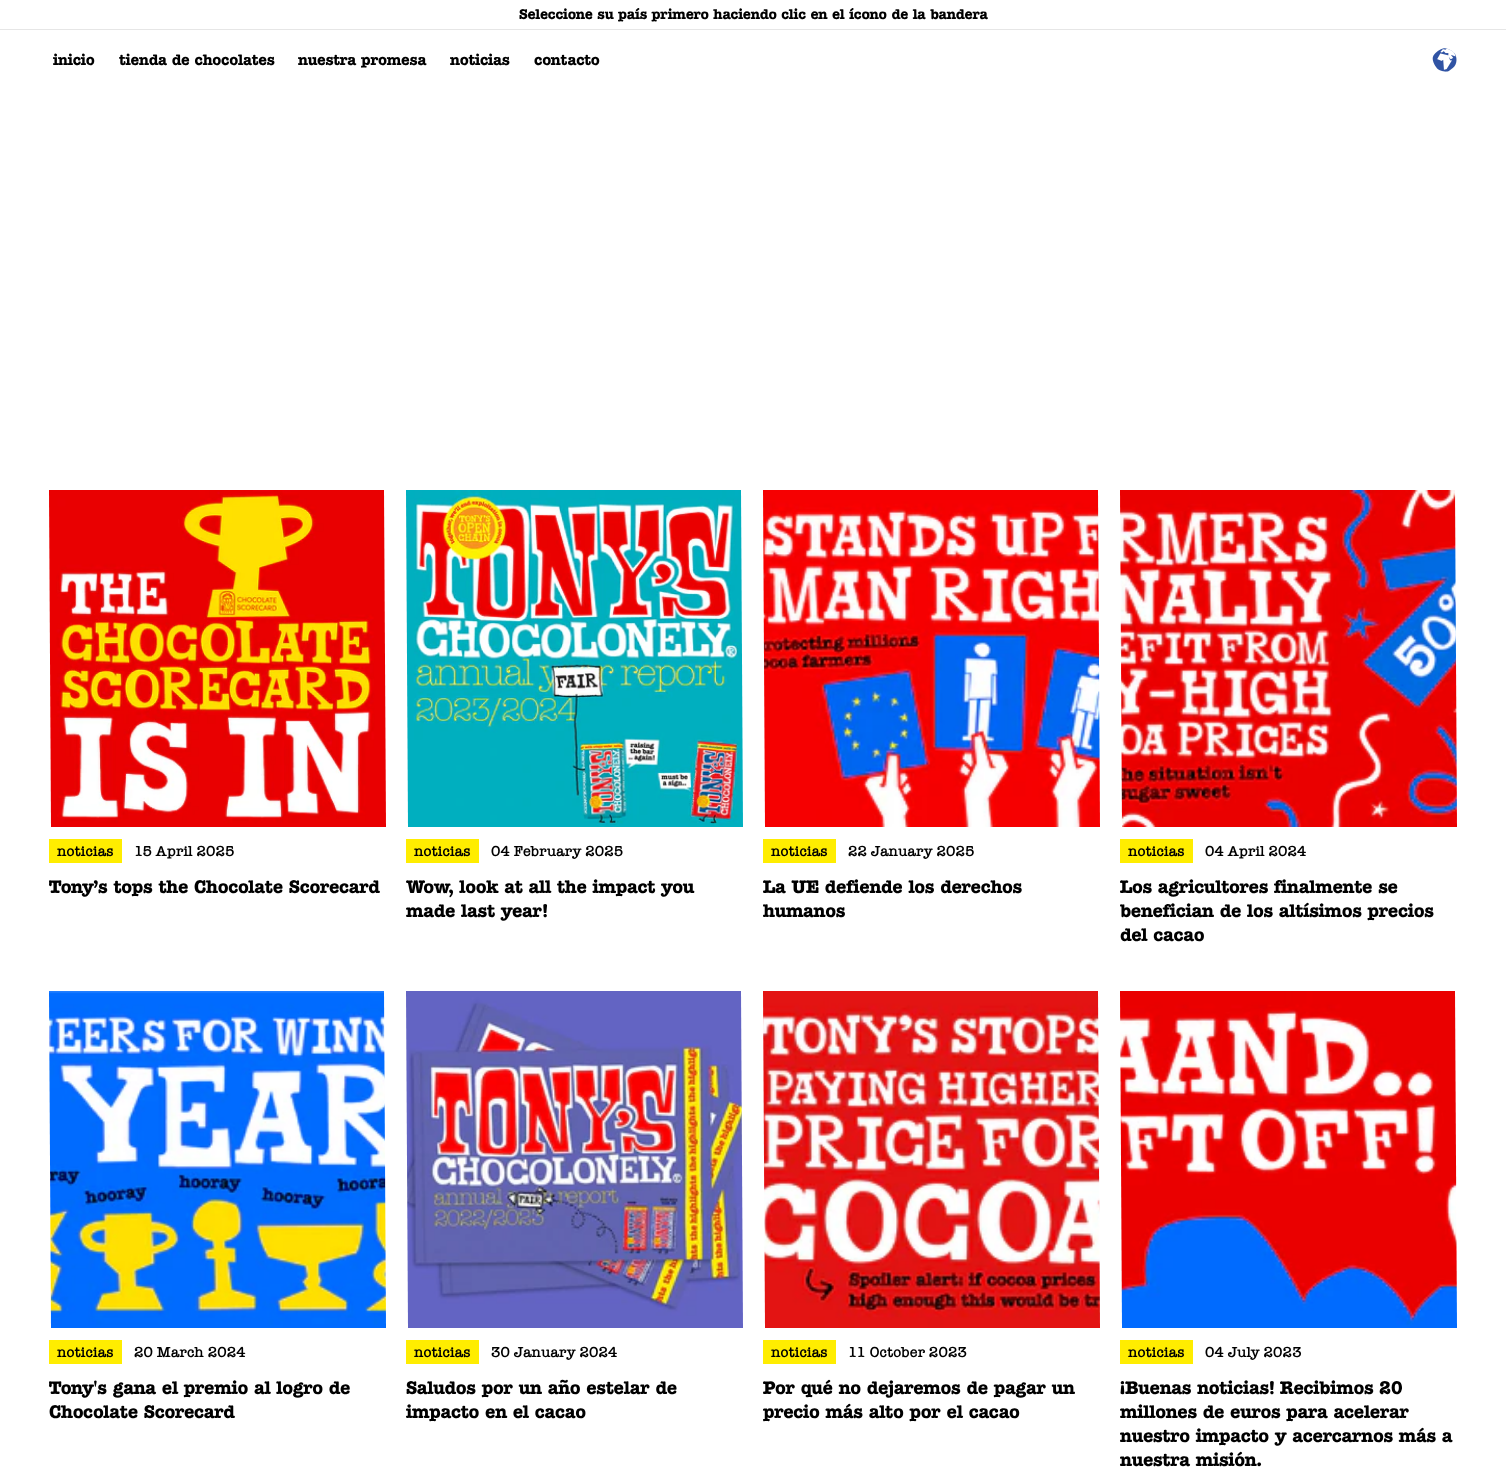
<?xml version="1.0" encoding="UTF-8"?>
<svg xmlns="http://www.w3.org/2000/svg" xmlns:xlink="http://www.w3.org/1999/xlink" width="1506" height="1483">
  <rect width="100%" height="100%" fill="#ffffff" />
  <rect y="29" width="1506" height="1" fill="#e6e6e6" />
  <image x="1432" y="48" width="25" height="24" xlink:href="image1.png" />
  <image x="49" y="490" width="337" height="337" xlink:href="image2.png" />
  <rect x="49" y="839" width="73" height="24" fill="#ffed00" />
  <image x="406" y="490" width="337" height="337" xlink:href="image3.png" />
  <rect x="406" y="839" width="73" height="24" fill="#ffed00" />
  <image x="763" y="490" width="337" height="337" xlink:href="image4.png" />
  <rect x="763" y="839" width="73" height="24" fill="#ffed00" />
  <image x="1120" y="490" width="337" height="337" xlink:href="image5.png" />
  <rect x="1120" y="839" width="73" height="24" fill="#ffed00" />
  <image x="49" y="991" width="337" height="337" xlink:href="image6.png" />
  <rect x="49" y="1340" width="73" height="24" fill="#ffed00" />
  <image x="406" y="991" width="337" height="337" xlink:href="image7.png" />
  <rect x="406" y="1340" width="73" height="24" fill="#ffed00" />
  <image x="763" y="991" width="337" height="337" xlink:href="image8.png" />
  <rect x="763" y="1340" width="73" height="24" fill="#ffed00" />
  <image x="1120" y="991" width="337" height="337" xlink:href="image9.png" />
  <rect x="1120" y="1340" width="73" height="24" fill="#ffed00" />
  <text x="519" y="19" style="font-family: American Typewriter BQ; font-size: 14px; font-weight: bold; fill: #000000">Seleccione su país primero haciendo clic en el ícono de la bandera</text>
  <text x="53" y="65" style="font-family: American Typewriter BQ; font-size: 15px; font-weight: bold; fill: #000000">inicio</text>
  <text x="119" y="65" style="font-family: American Typewriter BQ; font-size: 15px; font-weight: bold; fill: #000000">tienda de chocolates</text>
  <text x="298" y="65" style="font-family: American Typewriter BQ; font-size: 15px; font-weight: bold; fill: #000000">nuestra promesa</text>
  <text x="450" y="65" style="font-family: American Typewriter BQ; font-size: 15px; font-weight: bold; fill: #000000">noticias</text>
  <text x="534" y="65" style="font-family: American Typewriter BQ; font-size: 15px; font-weight: bold; fill: #000000">contacto</text>
  <text x="57" y="856" style="font-family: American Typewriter; font-size: 15px; font-weight: 600; fill: #000000">noticias</text>
  <text x="134" y="856" style="font-family: American Typewriter; font-size: 15px; font-weight: 600; fill: #000000">15 April 2025</text>
  <text x="49" y="893" style="font-family: American Typewriter BQ; font-size: 18px; font-weight: bold; fill: #000000">Tony’s tops the Chocolate Scorecard</text>
  <text x="414" y="856" style="font-family: American Typewriter; font-size: 15px; font-weight: 600; fill: #000000">noticias</text>
  <text x="491" y="856" style="font-family: American Typewriter; font-size: 15px; font-weight: 600; fill: #000000">04 February 2025</text>
  <text x="406" y="893" style="font-family: American Typewriter BQ; font-size: 18px; font-weight: bold; fill: #000000">Wow, look at all the impact you</text>
  <text x="406" y="917" style="font-family: American Typewriter BQ; font-size: 18px; font-weight: bold; fill: #000000">made last year!</text>
  <text x="771" y="856" style="font-family: American Typewriter; font-size: 15px; font-weight: 600; fill: #000000">noticias</text>
  <text x="848" y="856" style="font-family: American Typewriter; font-size: 15px; font-weight: 600; fill: #000000">22 January 2025</text>
  <text x="763" y="893" style="font-family: American Typewriter BQ; font-size: 18px; font-weight: bold; fill: #000000">La UE defiende los derechos</text>
  <text x="763" y="917" style="font-family: American Typewriter BQ; font-size: 18px; font-weight: bold; fill: #000000">humanos</text>
  <text x="1128" y="856" style="font-family: American Typewriter; font-size: 15px; font-weight: 600; fill: #000000">noticias</text>
  <text x="1205" y="856" style="font-family: American Typewriter; font-size: 15px; font-weight: 600; fill: #000000">04 April 2024</text>
  <text x="1120" y="893" style="font-family: American Typewriter BQ; font-size: 18px; font-weight: bold; fill: #000000">Los agricultores finalmente se</text>
  <text x="1120" y="917" style="font-family: American Typewriter BQ; font-size: 18px; font-weight: bold; fill: #000000">benefician de los altísimos precios</text>
  <text x="1120" y="941" style="font-family: American Typewriter BQ; font-size: 18px; font-weight: bold; fill: #000000">del cacao</text>
  <text x="57" y="1357" style="font-family: American Typewriter; font-size: 15px; font-weight: 600; fill: #000000">noticias</text>
  <text x="134" y="1357" style="font-family: American Typewriter; font-size: 15px; font-weight: 600; fill: #000000">20 March 2024</text>
  <text x="49" y="1394" style="font-family: American Typewriter BQ; font-size: 18px; font-weight: bold; fill: #000000">Tony's gana el premio al logro de</text>
  <text x="49" y="1418" style="font-family: American Typewriter BQ; font-size: 18px; font-weight: bold; fill: #000000">Chocolate Scorecard</text>
  <text x="414" y="1357" style="font-family: American Typewriter; font-size: 15px; font-weight: 600; fill: #000000">noticias</text>
  <text x="491" y="1357" style="font-family: American Typewriter; font-size: 15px; font-weight: 600; fill: #000000">30 January 2024</text>
  <text x="406" y="1394" style="font-family: American Typewriter BQ; font-size: 18px; font-weight: bold; fill: #000000">Saludos por un año estelar de</text>
  <text x="406" y="1418" style="font-family: American Typewriter BQ; font-size: 18px; font-weight: bold; fill: #000000">impacto en el cacao</text>
  <text x="771" y="1357" style="font-family: American Typewriter; font-size: 15px; font-weight: 600; fill: #000000">noticias</text>
  <text x="848" y="1357" style="font-family: American Typewriter; font-size: 15px; font-weight: 600; fill: #000000">11 October 2023</text>
  <text x="763" y="1394" style="font-family: American Typewriter BQ; font-size: 18px; font-weight: bold; fill: #000000">Por qué no dejaremos de pagar un</text>
  <text x="763" y="1418" style="font-family: American Typewriter BQ; font-size: 18px; font-weight: bold; fill: #000000">precio más alto por el cacao</text>
  <text x="1128" y="1357" style="font-family: American Typewriter; font-size: 15px; font-weight: 600; fill: #000000">noticias</text>
  <text x="1205" y="1357" style="font-family: American Typewriter; font-size: 15px; font-weight: 600; fill: #000000">04 July 2023</text>
  <text x="1120" y="1394" style="font-family: American Typewriter BQ; font-size: 18px; font-weight: bold; fill: #000000">¡Buenas noticias! Recibimos 20</text>
  <text x="1120" y="1418" style="font-family: American Typewriter BQ; font-size: 18px; font-weight: bold; fill: #000000">millones de euros para acelerar</text>
  <text x="1120" y="1442" style="font-family: American Typewriter BQ; font-size: 18px; font-weight: bold; fill: #000000">nuestro impacto y acercarnos más a</text>
  <text x="1120" y="1466" style="font-family: American Typewriter BQ; font-size: 18px; font-weight: bold; fill: #000000">nuestra misión.</text>
</svg>
